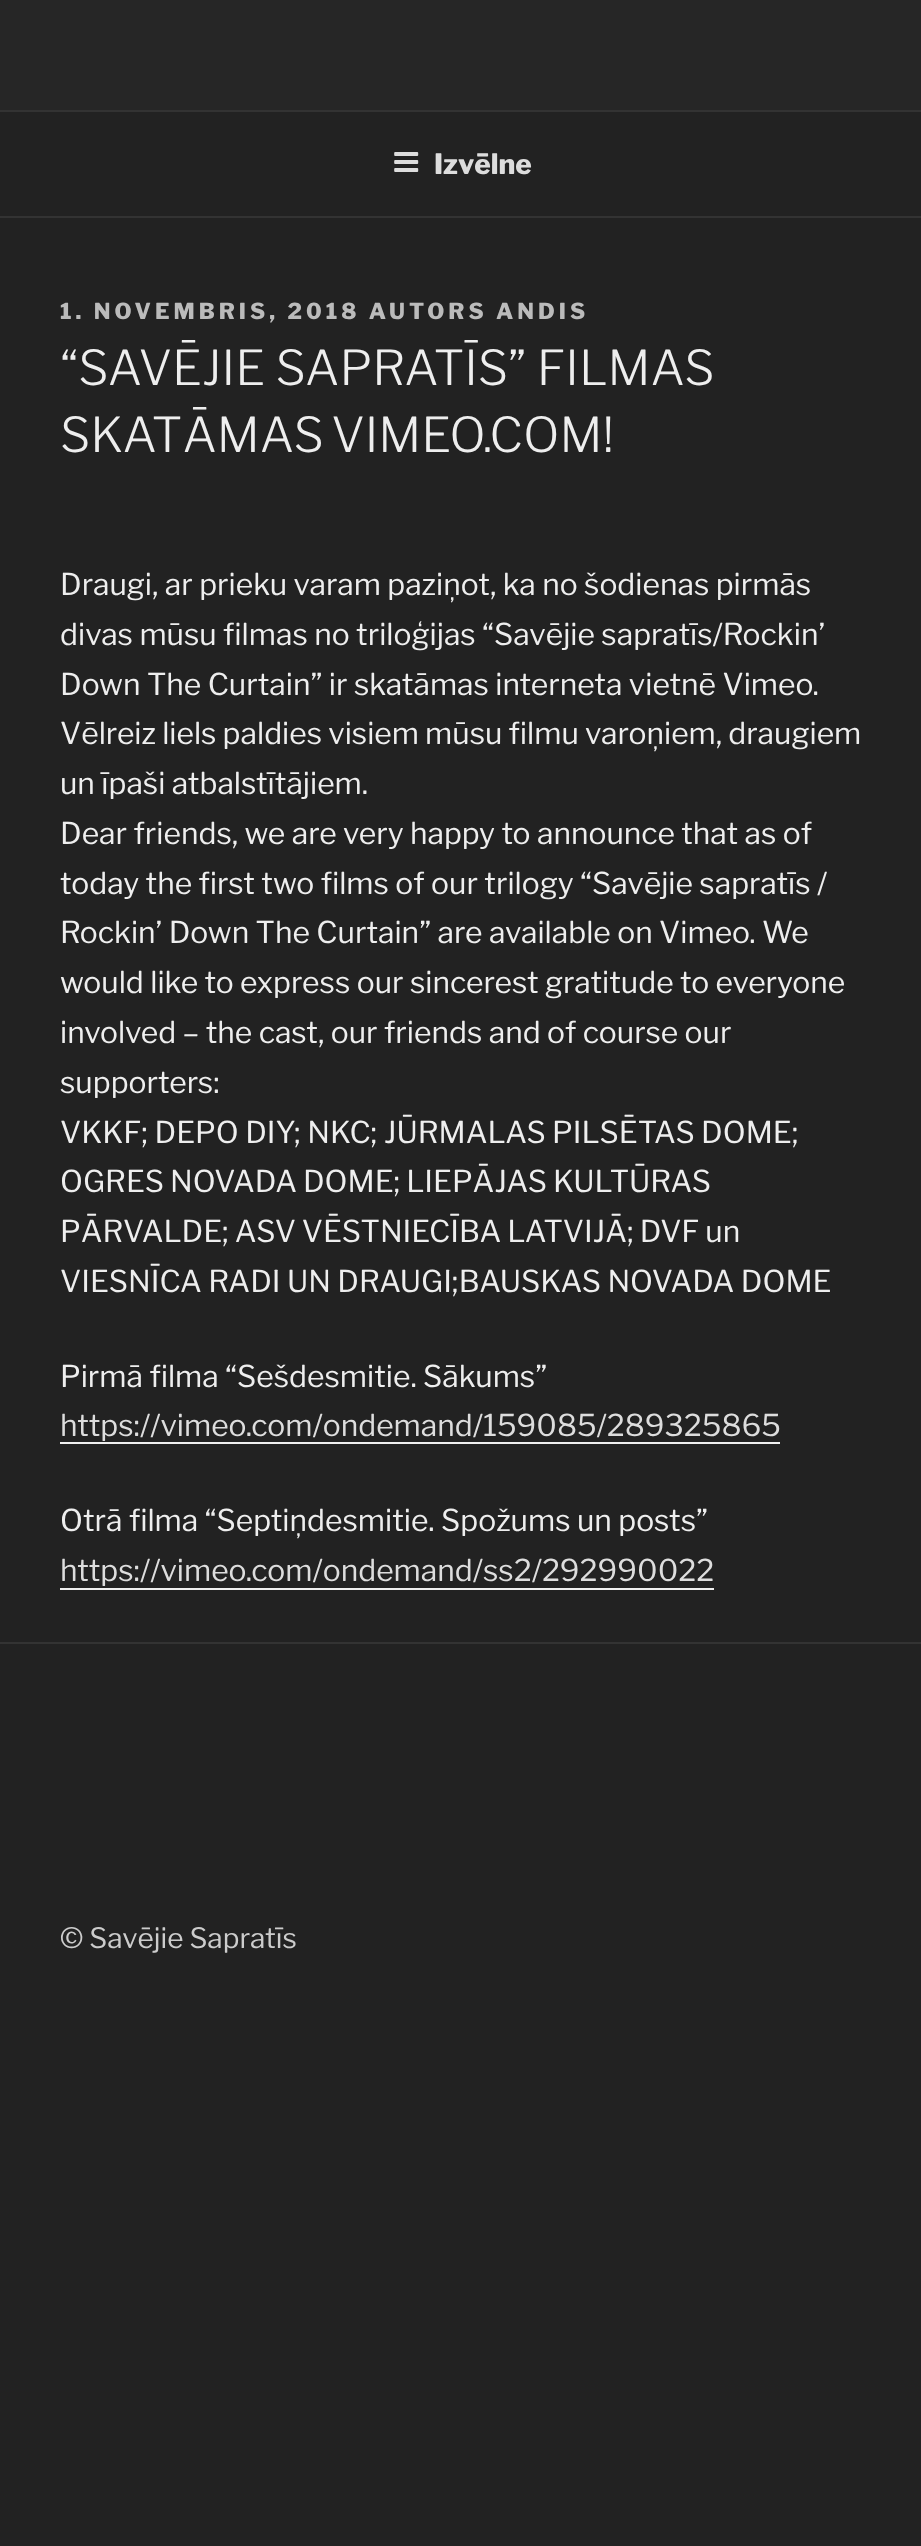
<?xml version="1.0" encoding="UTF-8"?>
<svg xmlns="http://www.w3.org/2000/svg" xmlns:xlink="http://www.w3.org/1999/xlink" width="921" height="2546">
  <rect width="100%" height="100%" fill="#222222" />
  <rect width="921" height="110" fill="#262626" />
  <rect y="110" width="921" height="2" fill="#333333" />
  <rect y="216" width="921" height="2" fill="#333333" />
  <image x="394" y="152" width="25" height="20" xlink:href="image1.png" />
  <rect x="60" y="1442" width="720" height="2" fill="#f0f0f0" />
  <rect x="60" y="1588" width="654" height="2" fill="#f0f0f0" />
  <rect y="1642" width="921" height="2" fill="#333333" />
  <text x="434" y="174" style="font-family: Libre Franklin; font-size: 28px; font-weight: 800; fill: #dddddd">Izvēlne</text>
  <text x="60" y="319" style="font-family: Libre Franklin; font-size: 22px; font-weight: 800; letter-spacing: 4px; fill: #bbbbbb">1. NOVEMBRIS, 2018 AUTORS ANDIS</text>
  <text x="60" y="385" style="font-family: Libre Franklin; font-size: 48px; font-weight: 300; fill: #eeeeee">“SAVĒJIE SAPRATĪS” FILMAS</text>
  <text x="60" y="452" word-spacing="-3" style="font-family: Libre Franklin; font-size: 48px; font-weight: 300; fill: #eeeeee">SKATĀMAS VIMEO.COM!</text>
  <text x="60" y="595" style="font-family: Libre Franklin; font-size: 30px; fill: #eeeeee">Draugi, ar prieku varam paziņot, ka no šodienas pirmās</text>
  <text x="60" y="645" style="font-family: Libre Franklin; font-size: 30px; fill: #eeeeee">divas mūsu filmas no triloģijas “Savējie sapratīs/Rockin’</text>
  <text x="60" y="695" style="font-family: Libre Franklin; font-size: 30px; fill: #eeeeee">Down The Curtain” ir skatāmas interneta vietnē Vimeo.</text>
  <text x="60" y="744" word-spacing="-0.25" style="font-family: Libre Franklin; font-size: 30px; fill: #eeeeee">Vēlreiz liels paldies visiem mūsu filmu varoņiem, draugiem</text>
  <text x="60" y="794" style="font-family: Libre Franklin; font-size: 30px; fill: #eeeeee">un īpaši atbalstītājiem.</text>
  <text x="60" y="844" style="font-family: Libre Franklin; font-size: 30px; fill: #eeeeee">Dear friends, we are very happy to announce that as of</text>
  <text x="60" y="894" style="font-family: Libre Franklin; font-size: 30px; fill: #eeeeee">today the first two films of our trilogy “Savējie sapratīs /</text>
  <text x="60" y="943" style="font-family: Libre Franklin; font-size: 30px; fill: #eeeeee">Rockin’ Down The Curtain” are available on Vimeo. We</text>
  <text x="60" y="993" style="font-family: Libre Franklin; font-size: 30px; fill: #eeeeee">would like to express our sincerest gratitude to everyone</text>
  <text x="60" y="1043" style="font-family: Libre Franklin; font-size: 30px; fill: #eeeeee">involved – the cast, our friends and of course our</text>
  <text x="60" y="1093" style="font-family: Libre Franklin; font-size: 30px; fill: #eeeeee">supporters:</text>
  <text x="60" y="1143" style="font-family: Libre Franklin; font-size: 30px; fill: #eeeeee">VKKF; DEPO DIY; NKC; JŪRMALAS PILSĒTAS DOME;</text>
  <text x="60" y="1192" word-spacing="-0.5" style="font-family: Libre Franklin; font-size: 30px; fill: #eeeeee">OGRES NOVADA DOME; LIEPĀJAS KULTŪRAS</text>
  <text x="60" y="1242" word-spacing="-0.5" style="font-family: Libre Franklin; font-size: 30px; fill: #eeeeee">PĀRVALDE; ASV VĒSTNIECĪBA LATVIJĀ; DVF un</text>
  <text x="60" y="1292" style="font-family: Libre Franklin; font-size: 30px; fill: #eeeeee">VIESNĪCA RADI UN DRAUGI;BAUSKAS NOVADA DOME</text>
  <text x="60" y="1387" style="font-family: Libre Franklin; font-size: 30px; fill: #eeeeee">Pirmā filma “Sešdesmitie. Sākums”</text>
  <text x="60" y="1436" style="font-family: Libre Franklin; font-size: 30px; fill: #dddddd">https://vimeo.com/ondemand/159085/289325865</text>
  <text x="60" y="1531" style="font-family: Libre Franklin; font-size: 30px; fill: #eeeeee">Otrā filma “Septiņdesmitie. Spožums un posts”</text>
  <text x="60" y="1581" style="font-family: Libre Franklin; font-size: 30px; fill: #dddddd">https://vimeo.com/ondemand/ss2/292990022</text>
  <text x="60" y="1948" style="font-family: Libre Franklin; font-size: 28px; fill: #cccccc">© Savējie Sapratīs</text>
</svg>
